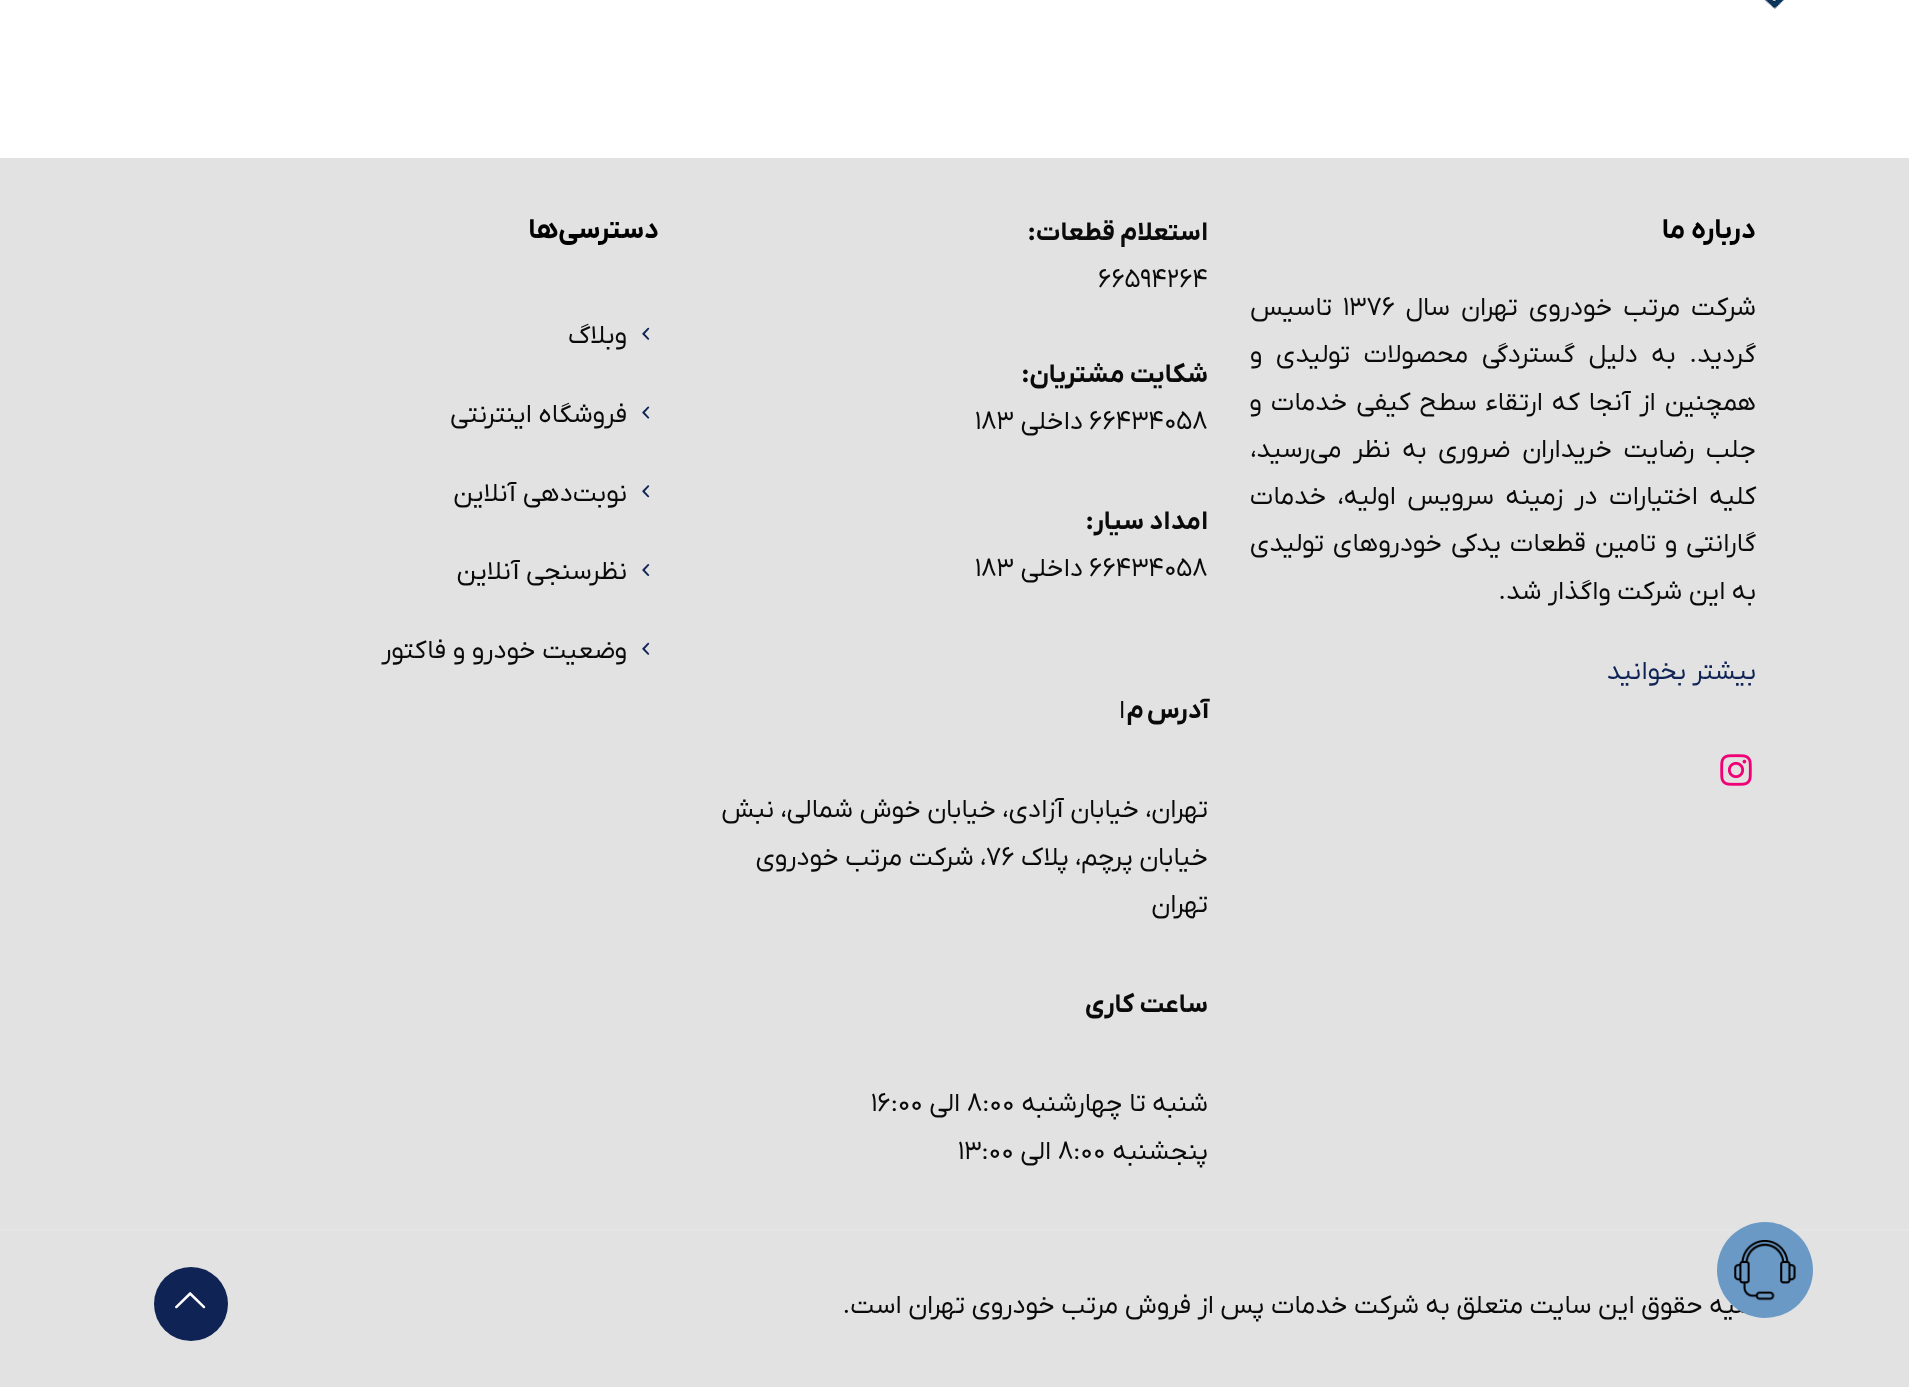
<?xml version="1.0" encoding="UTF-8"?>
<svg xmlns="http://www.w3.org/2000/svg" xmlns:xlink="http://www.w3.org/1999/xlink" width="1909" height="1387">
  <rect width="100%" height="100%" fill="#ffffff" />
  <image x="1764" y="0" width="20" height="9" xlink:href="image2.png" />
  <rect y="158" width="1909" height="1229" fill="#e2e2e2" />
  <image x="1720" y="754" width="32" height="32" xlink:href="image3.png" />
  <image x="642" y="327" width="8" height="13" xlink:href="image4.png" />
  <image x="642" y="406" width="8" height="13" xlink:href="image5.png" />
  <image x="642" y="485" width="8" height="13" xlink:href="image6.png" />
  <image x="642" y="564" width="8" height="13" xlink:href="image7.png" />
  <image x="642" y="642" width="8" height="13" xlink:href="image4.png" />
  <rect y="1229" width="1909" height="2" fill="#e5e5e5" />
  <circle cx="191" cy="1304" r="37" fill="#0f2355" />
  <image x="175" y="1292" width="31" height="17" xlink:href="image8.png" />
  <text x="1756" y="238" style="font-family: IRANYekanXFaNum; font-size: 28px; font-weight: bold; direction: rtl; fill: #000000">درباره ما</text>
  <text x="1756" y="315" word-spacing="4.5" style="font-family: IRANYekanXFaNum; font-size: 26.25px; direction: rtl; fill: #0a0a0a">شرکت مرتب خودروی تهران سال</text>
  <text x="1343" y="315" style="font-family: IRANYekanXFaNum; font-size: 26.25px; fill: #0a0a0a">1376</text>
  <text x="1332" y="315" style="font-family: IRANYekanXFaNum; font-size: 26.25px; direction: rtl; fill: #0a0a0a">تاسیس</text>
  <text x="1756" y="362" word-spacing="7" style="font-family: IRANYekanXFaNum; font-size: 26.25px; direction: rtl; fill: #0a0a0a">گردید. به دلیل گستردگی محصولات تولیدی و</text>
  <text x="1756" y="410" word-spacing="2.5" style="font-family: IRANYekanXFaNum; font-size: 26.25px; direction: rtl; fill: #0a0a0a">همچنین از آنجا که ارتقاء سطح کیفی خدمات و</text>
  <text x="1756" y="457" word-spacing="5" style="font-family: IRANYekanXFaNum; font-size: 26.25px; direction: rtl; fill: #0a0a0a">جلب رضایت خریداران ضروری به نظر می‌رسید،</text>
  <text x="1756" y="504" word-spacing="5" style="font-family: IRANYekanXFaNum; font-size: 26.25px; direction: rtl; fill: #0a0a0a">کلیه اختیارات در زمینه سرویس اولیه، خدمات</text>
  <text x="1756" y="551" word-spacing="2.25" style="font-family: IRANYekanXFaNum; font-size: 26.25px; direction: rtl; fill: #0a0a0a">گارانتی و تامین قطعات یدکی خودروهای تولیدی</text>
  <text x="1756" y="599" style="font-family: IRANYekanXFaNum; font-size: 26.25px; direction: rtl; fill: #0a0a0a">به این شرکت واگذار شد.</text>
  <text x="1756" y="679" style="font-family: IRANYekanXFaNum; font-size: 26.25px; direction: rtl; fill: #0f2355">بیشتر بخوانید</text>
  <text x="1208" y="240" style="font-family: IRANYekanXFaNum; font-size: 26.25px; font-weight: bold; direction: rtl; fill: #0a0a0a">استعلام قطعات:</text>
  <text x="1098" y="287" style="font-family: IRANYekanXFaNum; font-size: 26.25px; fill: #0a0a0a">66594264</text>
  <text x="1208" y="382" style="font-family: IRANYekanXFaNum; font-size: 26.25px; font-weight: bold; direction: rtl; fill: #0a0a0a">شکایت مشتریان:</text>
  <text x="1089" y="429" style="font-family: IRANYekanXFaNum; font-size: 26.25px; fill: #0a0a0a">66434058</text>
  <text x="1083" y="429" style="font-family: IRANYekanXFaNum; font-size: 26.25px; direction: rtl; fill: #0a0a0a">داخلی</text>
  <text x="975" y="429" style="font-family: IRANYekanXFaNum; font-size: 26.25px; fill: #0a0a0a">183</text>
  <text x="1208" y="529" style="font-family: IRANYekanXFaNum; font-size: 26.25px; font-weight: bold; direction: rtl; fill: #0a0a0a">امداد سیار:</text>
  <text x="1089" y="576" style="font-family: IRANYekanXFaNum; font-size: 26.25px; fill: #0a0a0a">66434058</text>
  <text x="1083" y="576" style="font-family: IRANYekanXFaNum; font-size: 26.25px; direction: rtl; fill: #0a0a0a">داخلی</text>
  <text x="975" y="576" style="font-family: IRANYekanXFaNum; font-size: 26.25px; fill: #0a0a0a">183</text>
  <text x="1209" y="718" word-spacing="-2" style="font-family: IRANYekanXFaNum; font-size: 26.25px; font-weight: bold; direction: rtl; fill: #0a0a0a">آدرس م</text>
  <text x="1125" y="718" style="font-family: IRANYekanXFaNum; font-size: 26.25px; direction: rtl; fill: #0a0a0a">ا</text>
  <text x="1208" y="817" style="font-family: IRANYekanXFaNum; font-size: 26.25px; direction: rtl; fill: #0a0a0a">تهران، خیابان آزادی، خیابان خوش شمالی، نبش</text>
  <text x="1208" y="865" style="font-family: IRANYekanXFaNum; font-size: 26.25px; direction: rtl; fill: #0a0a0a">خیابان پرچم، پلاک</text>
  <text x="986" y="865" style="font-family: IRANYekanXFaNum; font-size: 26.25px; fill: #0a0a0a">76</text>
  <text x="986" y="865" style="font-family: IRANYekanXFaNum; font-size: 26.25px; direction: rtl; fill: #0a0a0a">، شرکت مرتب خودروی</text>
  <text x="1208" y="912" style="font-family: IRANYekanXFaNum; font-size: 26.25px; direction: rtl; fill: #0a0a0a">تهران</text>
  <text x="1208" y="1012" style="font-family: IRANYekanXFaNum; font-size: 26.25px; font-weight: bold; direction: rtl; fill: #0a0a0a">ساعت کاری</text>
  <text x="1208" y="1111" style="font-family: IRANYekanXFaNum; font-size: 26.25px; direction: rtl; fill: #0a0a0a">شنبه تا چهارشنبه</text>
  <text x="967" y="1111" style="font-family: IRANYekanXFaNum; font-size: 26.25px; fill: #0a0a0a">8:00</text>
  <text x="960" y="1111" style="font-family: IRANYekanXFaNum; font-size: 26.25px; direction: rtl; fill: #0a0a0a">الی</text>
  <text x="871" y="1111" style="font-family: IRANYekanXFaNum; font-size: 26.25px; fill: #0a0a0a">16:00</text>
  <text x="1208" y="1159" style="font-family: IRANYekanXFaNum; font-size: 26.25px; direction: rtl; fill: #0a0a0a">پنجشنبه</text>
  <text x="1058" y="1159" style="font-family: IRANYekanXFaNum; font-size: 26.25px; fill: #0a0a0a">8:00</text>
  <text x="1051" y="1159" style="font-family: IRANYekanXFaNum; font-size: 26.25px; direction: rtl; fill: #0a0a0a">الی</text>
  <text x="958" y="1159" style="font-family: IRANYekanXFaNum; font-size: 26.25px; fill: #0a0a0a">13:00</text>
  <text x="659" y="238" style="font-family: IRANYekanXFaNum; font-size: 28px; font-weight: bold; direction: rtl; fill: #000000">دسترسی‌ها</text>
  <text x="627" y="343" style="font-family: IRANYekanXFaNum; font-size: 26.25px; direction: rtl; fill: #0a0a0a">وبلاگ</text>
  <text x="627" y="422" style="font-family: IRANYekanXFaNum; font-size: 26.25px; direction: rtl; fill: #0a0a0a">فروشگاه اینترنتی</text>
  <text x="627" y="501" style="font-family: IRANYekanXFaNum; font-size: 26.25px; direction: rtl; fill: #0a0a0a">نوبت‌دهی آنلاین</text>
  <text x="627" y="579" style="font-family: IRANYekanXFaNum; font-size: 26.25px; direction: rtl; fill: #0a0a0a">نظرسنجی آنلاین</text>
  <text x="627" y="658" style="font-family: IRANYekanXFaNum; font-size: 26.25px; direction: rtl; fill: #0a0a0a">وضعیت خودرو و فاکتور</text>
  <text x="1756" y="1313" style="font-family: IRANYekanXFaNum; font-size: 26.25px; direction: rtl; fill: #0a0a0a">کلیه حقوق این سایت متعلق به شرکت خدمات پس از فروش مرتب خودروی تهران است.</text>
  <circle cx="1765" cy="1270" r="48" fill="#6b99c6" />
  <image x="1734" y="1239" width="62" height="62" xlink:href="image1.png" />
</svg>
